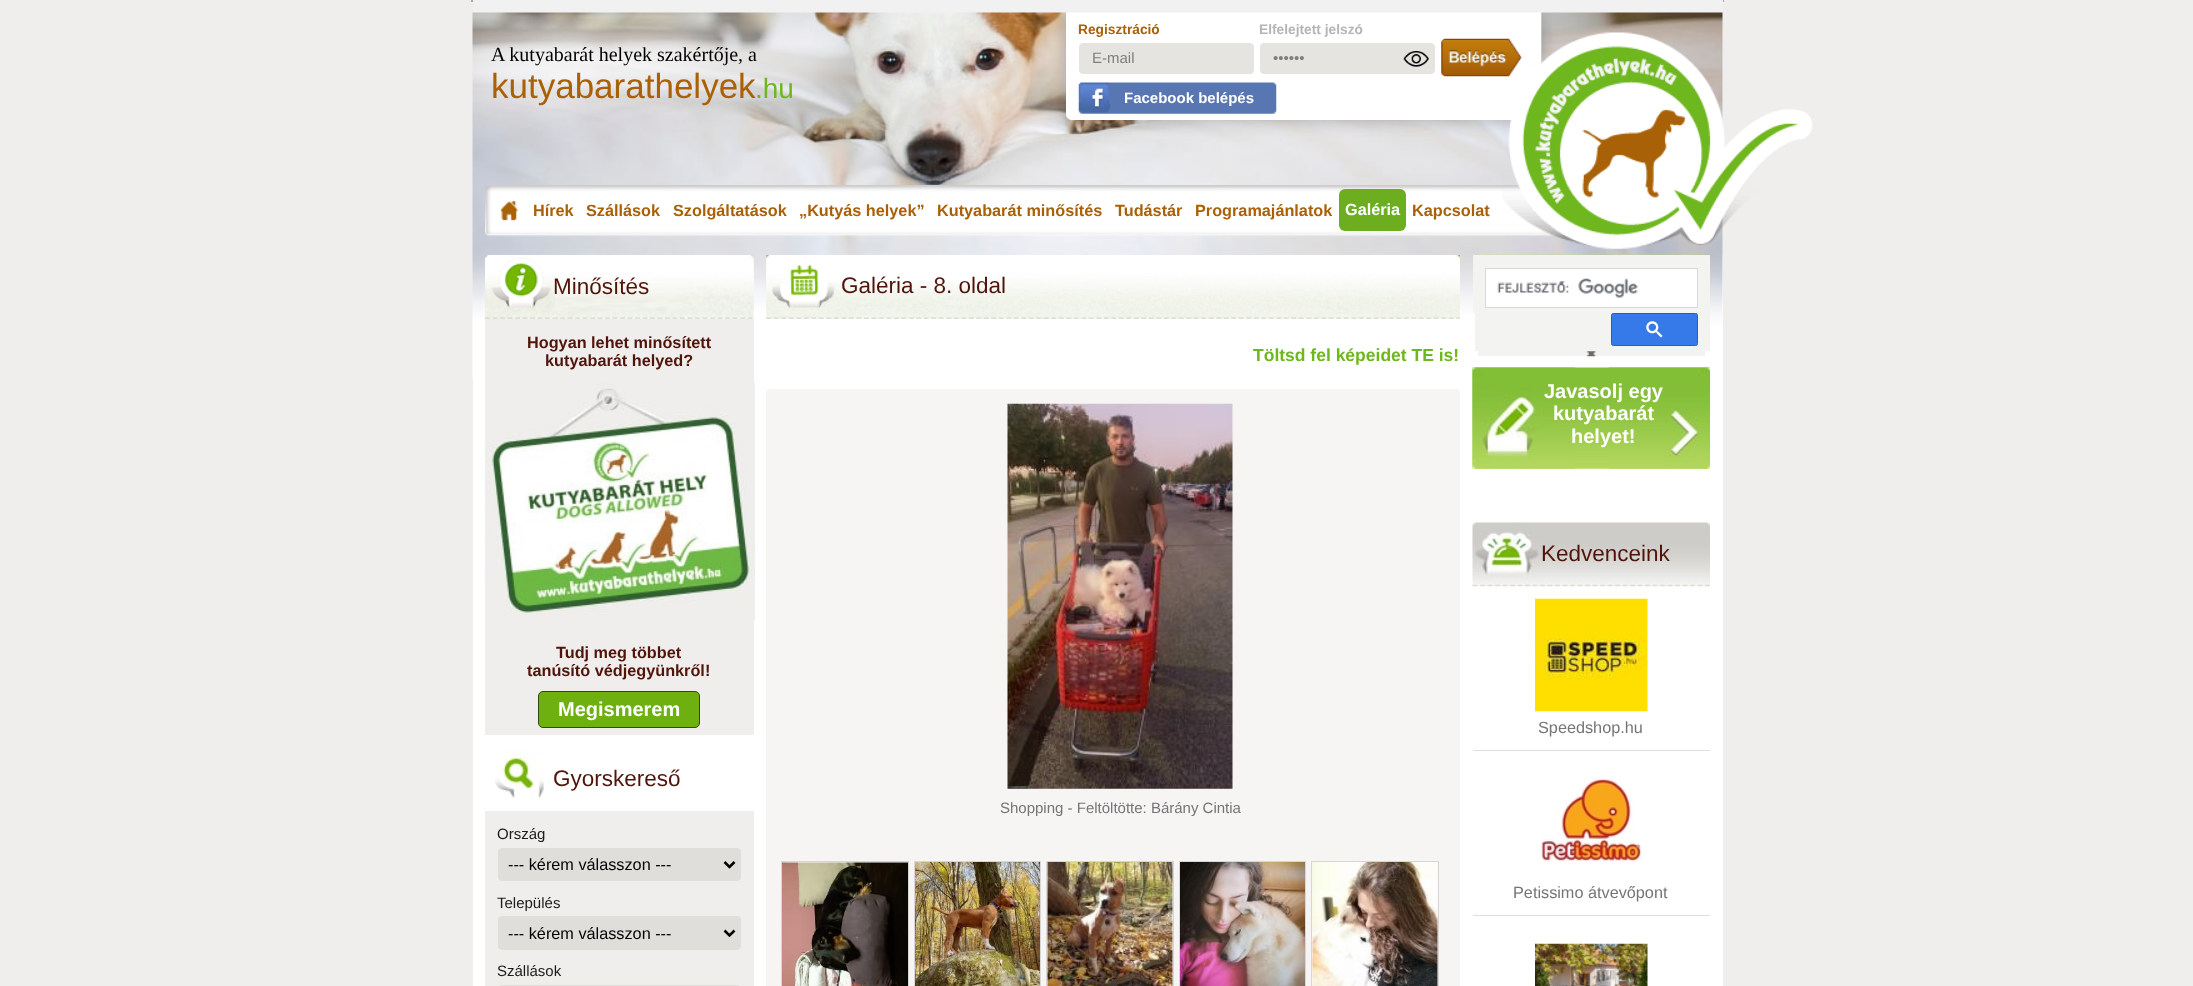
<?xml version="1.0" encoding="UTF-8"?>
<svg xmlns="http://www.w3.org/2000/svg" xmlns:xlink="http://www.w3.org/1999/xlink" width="2193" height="986">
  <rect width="100%" height="100%" fill="#efeeec" />
  <rect x="471" y="-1" width="1253" height="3" fill="#aaaaaa" filter="blur(0.5px)" />
  <rect x="473" width="1250" height="13" fill="#f1f1f1" />
  <image x="472" y="12" width="1251" height="243" xlink:href="image1.png" />
  <image x="485" y="185" width="1084" height="52" xlink:href="image6.png" />
  <image x="1502" y="32" width="311" height="217" xlink:href="image5.png" />
  <path d="M 1066 13 h 457 v 101 c 0 3.5 -2.5 6 -6 6 h -445 c -3.5 0 -6 -2.5 -6 -6 z" fill="#ffffff" />
  <rect x="1079.5" y="43.5" width="174" height="30" rx="3.5" fill="#e5e4e1" stroke="#e5e4e1" />
  <rect x="1260.5" y="43.5" width="174" height="30" rx="3.5" fill="#e5e4e1" stroke="#e5e4e1" />
  <image x="1403" y="51" width="26" height="16" xlink:href="image2.png" />
  <image x="1441" y="38" width="81" height="39" xlink:href="image3.png" />
  <image x="1078" y="82" width="199" height="32" xlink:href="image4.png" />
  <image x="500" y="201" width="18" height="20" xlink:href="image7.png" />
  <rect x="1339" y="189" width="67" height="42" rx="6" fill="#6cae1f" />
  <rect x="473" y="255" width="1250" height="731" fill="#ffffff" />
  <image x="472" y="255" width="1251" height="124" xlink:href="image8.png" />
  <image x="485" y="255" width="269" height="64" xlink:href="image9.png" />
  <path d="M 485.5 319.5 h 268 v 414.5 c 0 0.5 0 0.5 -0.5 0.5 h -267 c -0.5 0 -0.5 0 -0.5 -0.5 z" fill="#efeeec" stroke="#efeeec" />
  <image x="486" y="382" width="269" height="238" xlink:href="image10.png" />
  <rect x="538.5" y="691.5" width="161" height="36" rx="4.5" fill="#6eb010" stroke="#364713" />
  <image x="495" y="748" width="50" height="50" xlink:href="image11.png" />
  <rect x="485" y="811" width="269" height="175" fill="#efeeec" />
  <rect x="498.5" y="848.5" width="242" height="32" rx="3.5" fill="#e0deda" stroke="#e0deda" />
  <path d="M 724.5 862 l 5 5 l 5 -5" fill="none" stroke="#000000" stroke-width="2.5" />
  <rect x="498.5" y="916.5" width="242" height="33" rx="3.5" fill="#e0deda" stroke="#e0deda" />
  <path d="M 724.5 930.5 l 5 5 l 5 -5" fill="none" stroke="#000000" stroke-width="2.5" />
  <rect x="498.5" y="985.5" width="242" height="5" rx="3.5" fill="none" stroke="#e0deda" />
  <image x="766" y="255" width="694" height="64" xlink:href="image12.png" />
  <rect x="766" y="389" width="694" height="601" rx="4" fill="#f6f5f4" />
  <image x="1007" y="403" width="226" height="386" xlink:href="image13.png" />
  <image x="782" y="862" width="126" height="124" xlink:href="image14.png" />
  <rect x="781.5" y="861.5" width="127" height="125" fill="none" stroke="#d7d6d5" />
  <image x="915" y="862" width="125" height="124" xlink:href="image15.png" />
  <rect x="914.5" y="861.5" width="126" height="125" fill="none" stroke="#d7d6d5" />
  <image x="1047" y="862" width="126" height="124" xlink:href="image16.png" />
  <rect x="1046.5" y="861.5" width="127" height="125" fill="none" stroke="#d7d6d5" />
  <image x="1180" y="862" width="125" height="124" xlink:href="image17.png" />
  <rect x="1179.5" y="861.5" width="126" height="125" fill="none" stroke="#d7d6d5" />
  <image x="1312" y="862" width="126" height="124" xlink:href="image18.png" />
  <rect x="1311.5" y="861.5" width="127" height="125" fill="none" stroke="#d7d6d5" />
  <rect x="1542" y="313" width="168" height="9" fill="#ffffff" />
  <rect x="1473" y="255" width="237" height="58" fill="#f3f3f1" />
  <rect x="1485.5" y="268.5" width="212" height="39" fill="#ffffff" stroke="#d9d9d9" />
  <image x="1497" y="278" width="141" height="20" xlink:href="image19.png" />
  <rect x="1475" y="313" width="235" height="38" fill="#f3f3f1" />
  <rect x="1611.5" y="313.5" width="86" height="32" rx="2" fill="#357ae8" stroke="#2f5bb7" />
  <image x="1646" y="321" width="17" height="17" xlink:href="image20.png" />
  <rect x="1478" y="351" width="227" height="5" fill="#f3f3f1" />
  <image x="1586" y="351" width="11" height="6" xlink:href="image21.png" />
  <image x="1472" y="367" width="238" height="102" xlink:href="image22.png" />
  <image x="1472" y="367" width="103" height="102" xlink:href="image23.png" />
  <image x="1608" y="367" width="102" height="102" xlink:href="image24.png" />
  <image x="1472" y="522" width="238" height="65" xlink:href="image25.png" />
  <image x="1535" y="598" width="113" height="114" xlink:href="image26.png" />
  <rect x="1473" y="750" width="237" height="1" fill="#dfdfdf" />
  <image x="1540" y="778" width="102" height="84" xlink:href="image27.png" />
  <rect x="1473" y="915" width="237" height="1" fill="#dfdfdf" />
  <image x="1535" y="943" width="113" height="43" xlink:href="image28.png" />
  <text x="491" y="61" style="font-family: Liberation Serif; font-size: 20px; fill: #000000">A kutyabarát helyek szakértője, a</text>
  <text x="491" y="98" style="font-family: Liberation Sans; font-size: 35px; fill: #a96006">kutyabarathelyek</text>
  <text x="755" y="98" style="font-family: Liberation Sans; font-size: 28px; fill: #6fb71f">.hu</text>
  <text x="1078" y="34" style="font-family: Liberation Sans; font-size: 13.75px; font-weight: bold; fill: #a96006">Regisztráció</text>
  <text x="1259" y="34" style="font-family: Liberation Sans; font-size: 13.75px; font-weight: bold; fill: #b5b5b3">Elfelejtett jelszó</text>
  <text x="1092" y="63" style="font-family: Liberation Sans; font-size: 15px; fill: #7f7f7f">E-mail</text>
  <text x="1273" y="63" style="font-family: Liberation Sans; font-size: 15px; fill: #7f7f7f">••••••</text>
  <text x="1124" y="103" style="font-family: Liberation Sans; font-size: 15px; font-weight: bold; fill: #ffffff">Facebook belépés</text>
  <text x="533" y="216" style="font-family: Liberation Sans; font-size: 16.25px; font-weight: bold; fill: #a96006">Hírek</text>
  <text x="586" y="216" style="font-family: Liberation Sans; font-size: 16.25px; font-weight: bold; fill: #a96006">Szállások</text>
  <text x="673" y="216" style="font-family: Liberation Sans; font-size: 16.25px; font-weight: bold; fill: #a96006">Szolgáltatások</text>
  <text x="799" y="216" style="font-family: Liberation Sans; font-size: 16.25px; font-weight: bold; fill: #a96006">„Kutyás helyek”</text>
  <text x="937" y="216" style="font-family: Liberation Sans; font-size: 16.25px; font-weight: bold; fill: #a96006">Kutyabarát minősítés</text>
  <text x="1115" y="216" style="font-family: Liberation Sans; font-size: 16.25px; font-weight: bold; fill: #a96006">Tudástár</text>
  <text x="1195" y="216" style="font-family: Liberation Sans; font-size: 16.25px; font-weight: bold; fill: #a96006">Programajánlatok</text>
  <text x="1345" y="215" style="font-family: Liberation Sans; font-size: 16.25px; font-weight: bold; fill: #ffffff">Galéria</text>
  <text x="1412" y="216" style="font-family: Liberation Sans; font-size: 16.25px; font-weight: bold; fill: #a96006">Kapcsolat</text>
  <text x="553" y="294" style="font-family: Liberation Sans; font-size: 22.5px; fill: #51140a">Minősítés</text>
  <text x="527" y="348" style="font-family: Liberation Sans; font-size: 16.25px; font-weight: bold; fill: #51140a">Hogyan lehet minősített</text>
  <text x="545" y="366" style="font-family: Liberation Sans; font-size: 16.25px; font-weight: bold; fill: #51140a">kutyabarát helyed?</text>
  <text x="556" y="658" style="font-family: Liberation Sans; font-size: 16.25px; font-weight: bold; fill: #51140a">Tudj meg többet</text>
  <text x="527" y="676" style="font-family: Liberation Sans; font-size: 16.25px; font-weight: bold; fill: #51140a">tanúsító védjegyünkről!</text>
  <text x="558" y="716" style="font-family: Liberation Sans; font-size: 20px; font-weight: bold; fill: #ffffff">Megismerem</text>
  <text x="553" y="786" style="font-family: Liberation Sans; font-size: 22.5px; fill: #51140a">Gyorskereső</text>
  <text x="497" y="839" style="font-family: Liberation Sans; font-size: 15px; fill: #1b1b1b">Ország</text>
  <text x="508" y="870" style="font-family: Liberation Sans; font-size: 16.25px; fill: #000000">--- kérem válasszon ---</text>
  <text x="497" y="908" style="font-family: Liberation Sans; font-size: 15px; fill: #1b1b1b">Település</text>
  <text x="508" y="939" style="font-family: Liberation Sans; font-size: 16.25px; fill: #000000">--- kérem válasszon ---</text>
  <text x="497" y="976" style="font-family: Liberation Sans; font-size: 15px; fill: #1b1b1b">Szállások</text>
  <text x="841" y="293" style="font-family: Liberation Sans; font-size: 22.5px; fill: #51140a">Galéria - 8. oldal</text>
  <text x="1253" y="361" style="font-family: Liberation Sans; font-size: 17.5px; font-weight: bold; fill: #6fb71f">Töltsd fel képeidet TE is!</text>
  <text x="1000" y="813" style="font-family: Liberation Sans; font-size: 15px; fill: #757575">Shopping - Feltöltötte: Bárány Cintia</text>
  <text x="1544" y="398" style="font-family: Liberation Sans; font-size: 20px; font-weight: bold; fill: #ffffff">Javasolj egy</text>
  <text x="1553" y="420" style="font-family: Liberation Sans; font-size: 20px; font-weight: bold; fill: #ffffff">kutyabarát</text>
  <text x="1571" y="443" style="font-family: Liberation Sans; font-size: 20px; font-weight: bold; fill: #ffffff">helyet!</text>
  <text x="1541" y="561" style="font-family: Liberation Sans; font-size: 22.5px; fill: #51140a">Kedvenceink</text>
  <text x="1538" y="733" style="font-family: Liberation Sans; font-size: 16.25px; fill: #757575">Speedshop.hu</text>
  <text x="1513" y="898" style="font-family: Liberation Sans; font-size: 16.25px; fill: #757575">Petissimo átvevőpont</text>
</svg>
